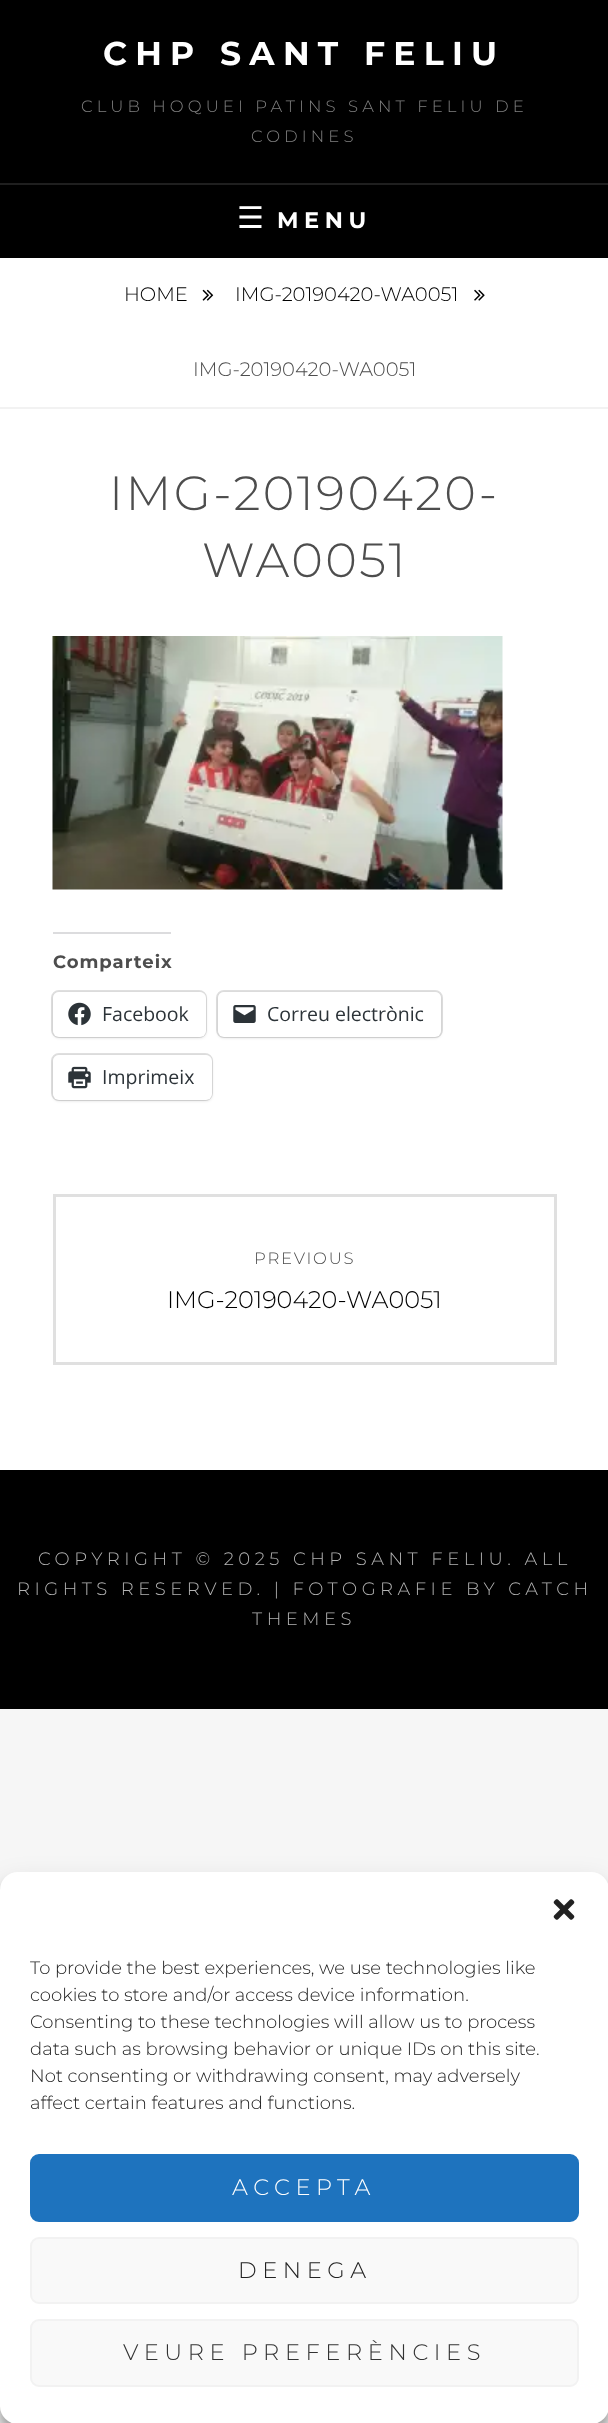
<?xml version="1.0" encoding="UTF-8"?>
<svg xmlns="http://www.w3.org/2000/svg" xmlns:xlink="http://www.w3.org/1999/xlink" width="608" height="2423">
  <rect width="100%" height="100%" fill="#f6f6f6" />
  <rect y="258" width="608" height="1212" fill="#ffffff" />
  <rect width="608" height="258" fill="#000000" />
  <rect y="183" width="608" height="2" fill="#1f1f1f" />
  <rect y="407" width="608" height="2" fill="#f2f2f2" />
  <image x="202" y="289" width="12" height="12" xlink:href="image1.png" />
  <image x="474" y="289" width="11" height="12" xlink:href="image2.png" />
  <image x="52" y="636" width="451" height="254" xlink:href="image3.png" />
  <rect x="53" y="932" width="118" height="2" fill="#dcdcde" />
  <rect x="52" y="991" width="154" height="46" rx="7" fill="none" stroke="#e0e0e0" stroke-width="2" />
  <rect x="53" y="993" width="153" height="45" rx="6" fill="#000000" fill-opacity="0.12" filter="blur(1.5px)" />
  <rect x="53" y="992" width="153" height="45" rx="6" fill="#ffffff" />
  <image x="68" y="1002" width="23" height="24" xlink:href="image4.png" />
  <rect x="217" y="991" width="225" height="46" rx="7" fill="none" stroke="#e0e0e0" stroke-width="2" />
  <rect x="218" y="993" width="223" height="45" rx="6" fill="#000000" fill-opacity="0.12" filter="blur(1.5px)" />
  <rect x="218" y="992" width="223" height="45" rx="6" fill="#ffffff" />
  <image x="233" y="1005" width="23" height="18" xlink:href="image5.png" />
  <rect x="52" y="1054" width="160" height="46" rx="7" fill="none" stroke="#e0e0e0" stroke-width="2" />
  <rect x="53" y="1056" width="159" height="45" rx="6" fill="#000000" fill-opacity="0.12" filter="blur(1.5px)" />
  <rect x="53" y="1055" width="159" height="45" rx="6" fill="#ffffff" />
  <image x="68" y="1066" width="23" height="23" xlink:href="image6.png" />
  <rect x="54.5" y="1195.5" width="501" height="168" fill="none" stroke="#e0e0e0" stroke-width="3" />
  <rect y="1470" width="608" height="239" fill="#000000" />
  <rect y="1881" width="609" height="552" rx="18" fill="#000000" fill-opacity="0.23" filter="blur(4.5px)" />
  <rect y="1887" width="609" height="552" rx="18" fill="#000000" fill-opacity="0.19" filter="blur(15px)" />
  <rect y="1872" width="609" height="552" rx="18" fill="#ffffff" />
  <image x="553" y="1899" width="22" height="21" xlink:href="image7.png" />
  <rect x="31" y="2155" width="547" height="66" rx="8" fill="#1e73be" stroke="#1e73be" stroke-width="2" />
  <rect x="31" y="2238" width="547" height="65" rx="8" fill="#f9f9f9" stroke="#f2f2f2" stroke-width="2" />
  <rect x="31" y="2320" width="547" height="66" rx="8" fill="#f9f9f9" stroke="#f2f2f2" stroke-width="2" />
  <text x="103" y="65" style="font-family: Montserrat; font-size: 33px; font-weight: bold; letter-spacing: 8.25px; fill: #ffffff">CHP SANT FELIU</text>
  <text x="81" y="112" style="font-family: Montserrat; font-size: 16.5px; font-weight: 300; letter-spacing: 4.1px; fill: #808080">CLUB HOQUEI PATINS SANT FELIU DE</text>
  <text x="251" y="142" style="font-family: Montserrat; font-size: 16.5px; font-weight: 300; letter-spacing: 4.1px; fill: #808080">CODINES</text>
  <text x="237" y="228" style="font-family: DejaVu Sans; font-size: 30px; letter-spacing: 5.6px; fill: #ffffff">☰</text>
  <text x="277" y="228" style="font-family: Montserrat; font-size: 22.5px; font-weight: bold; letter-spacing: 5.6px; fill: #ffffff">MENU</text>
  <text x="124" y="301" style="font-family: Montserrat; font-size: 19.5px; font-weight: 300; fill: #000000">HOME</text>
  <text x="235" y="301" style="font-family: Montserrat; font-size: 19.5px; font-weight: 300; fill: #000000">IMG-20190420-WA0051</text>
  <text x="193" y="376" style="font-family: Montserrat; font-size: 19.5px; font-weight: 300; fill: #4d4d4d">IMG-20190420-WA0051</text>
  <text x="109" y="510" style="font-family: Montserrat; font-size: 48px; font-weight: 300; letter-spacing: 2.4px; fill: #4d4d4d">IMG-20190420-</text>
  <text x="202" y="577" style="font-family: Montserrat; font-size: 48px; font-weight: 300; letter-spacing: 2.4px; fill: #4d4d4d">WA0051</text>
  <text x="53" y="968" style="font-family: Montserrat; font-size: 18px; font-weight: bold; letter-spacing: 1px; fill: #4d4d4d">Comparteix</text>
  <text x="102" y="1021" style="font-family: Open Sans; font-size: 19.5px; fill: #2c3338">Facebook</text>
  <text x="267" y="1021" style="font-family: Open Sans; font-size: 19.5px; fill: #2c3338">Correu electrònic</text>
  <text x="102" y="1084" style="font-family: Open Sans; font-size: 19.5px; fill: #2c3338">Imprimeix</text>
  <text x="254" y="1264" style="font-family: Montserrat; font-size: 16.5px; font-weight: 300; letter-spacing: 1.75px; fill: #4d4d4d">PREVIOUS</text>
  <text x="167" y="1308" style="font-family: Montserrat; font-size: 24px; font-weight: 300; fill: #000000">IMG-20190420-WA0051</text>
  <text x="38" y="1565" style="font-family: Montserrat; font-size: 18px; font-weight: 300; letter-spacing: 4.5px; fill: #b3b3b3">COPYRIGHT © 2025 CHP SANT FELIU. ALL</text>
  <text x="17" y="1595" style="font-family: Montserrat; font-size: 18px; font-weight: 300; letter-spacing: 4.5px; fill: #b3b3b3">RIGHTS RESERVED. | FOTOGRAFIE BY CATCH</text>
  <text x="252" y="1625" style="font-family: Montserrat; font-size: 18px; font-weight: 300; letter-spacing: 4.5px; fill: #b3b3b3">THEMES</text>
  <text x="30" y="1974" style="font-family: Montserrat; font-size: 18px; font-weight: 300; fill: #222222">To provide the best experiences, we use technologies like</text>
  <text x="30" y="2001" style="font-family: Montserrat; font-size: 18px; font-weight: 300; fill: #222222">cookies to store and/or access device information.</text>
  <text x="30" y="2028" style="font-family: Montserrat; font-size: 18px; font-weight: 300; fill: #222222">Consenting to these technologies will allow us to process</text>
  <text x="30" y="2055" style="font-family: Montserrat; font-size: 18px; font-weight: 300; fill: #222222">data such as browsing behavior or unique IDs on this site.</text>
  <text x="30" y="2082" style="font-family: Montserrat; font-size: 18px; font-weight: 300; fill: #222222">Not consenting or withdrawing consent, may adversely</text>
  <text x="30" y="2109" style="font-family: Montserrat; font-size: 18px; font-weight: 300; fill: #222222">affect certain features and functions.</text>
  <text x="232" y="2195" style="font-family: Montserrat; font-size: 22.5px; font-weight: 300; letter-spacing: 5.6px; fill: #ffffff">ACCEPTA</text>
  <text x="238" y="2278" style="font-family: Montserrat; font-size: 22.5px; font-weight: 300; letter-spacing: 5.6px; fill: #222222">DENEGA</text>
  <text x="123" y="2360" style="font-family: Montserrat; font-size: 22.5px; font-weight: 300; letter-spacing: 5.6px; fill: #333333">VEURE PREFERÈNCIES</text>
</svg>
